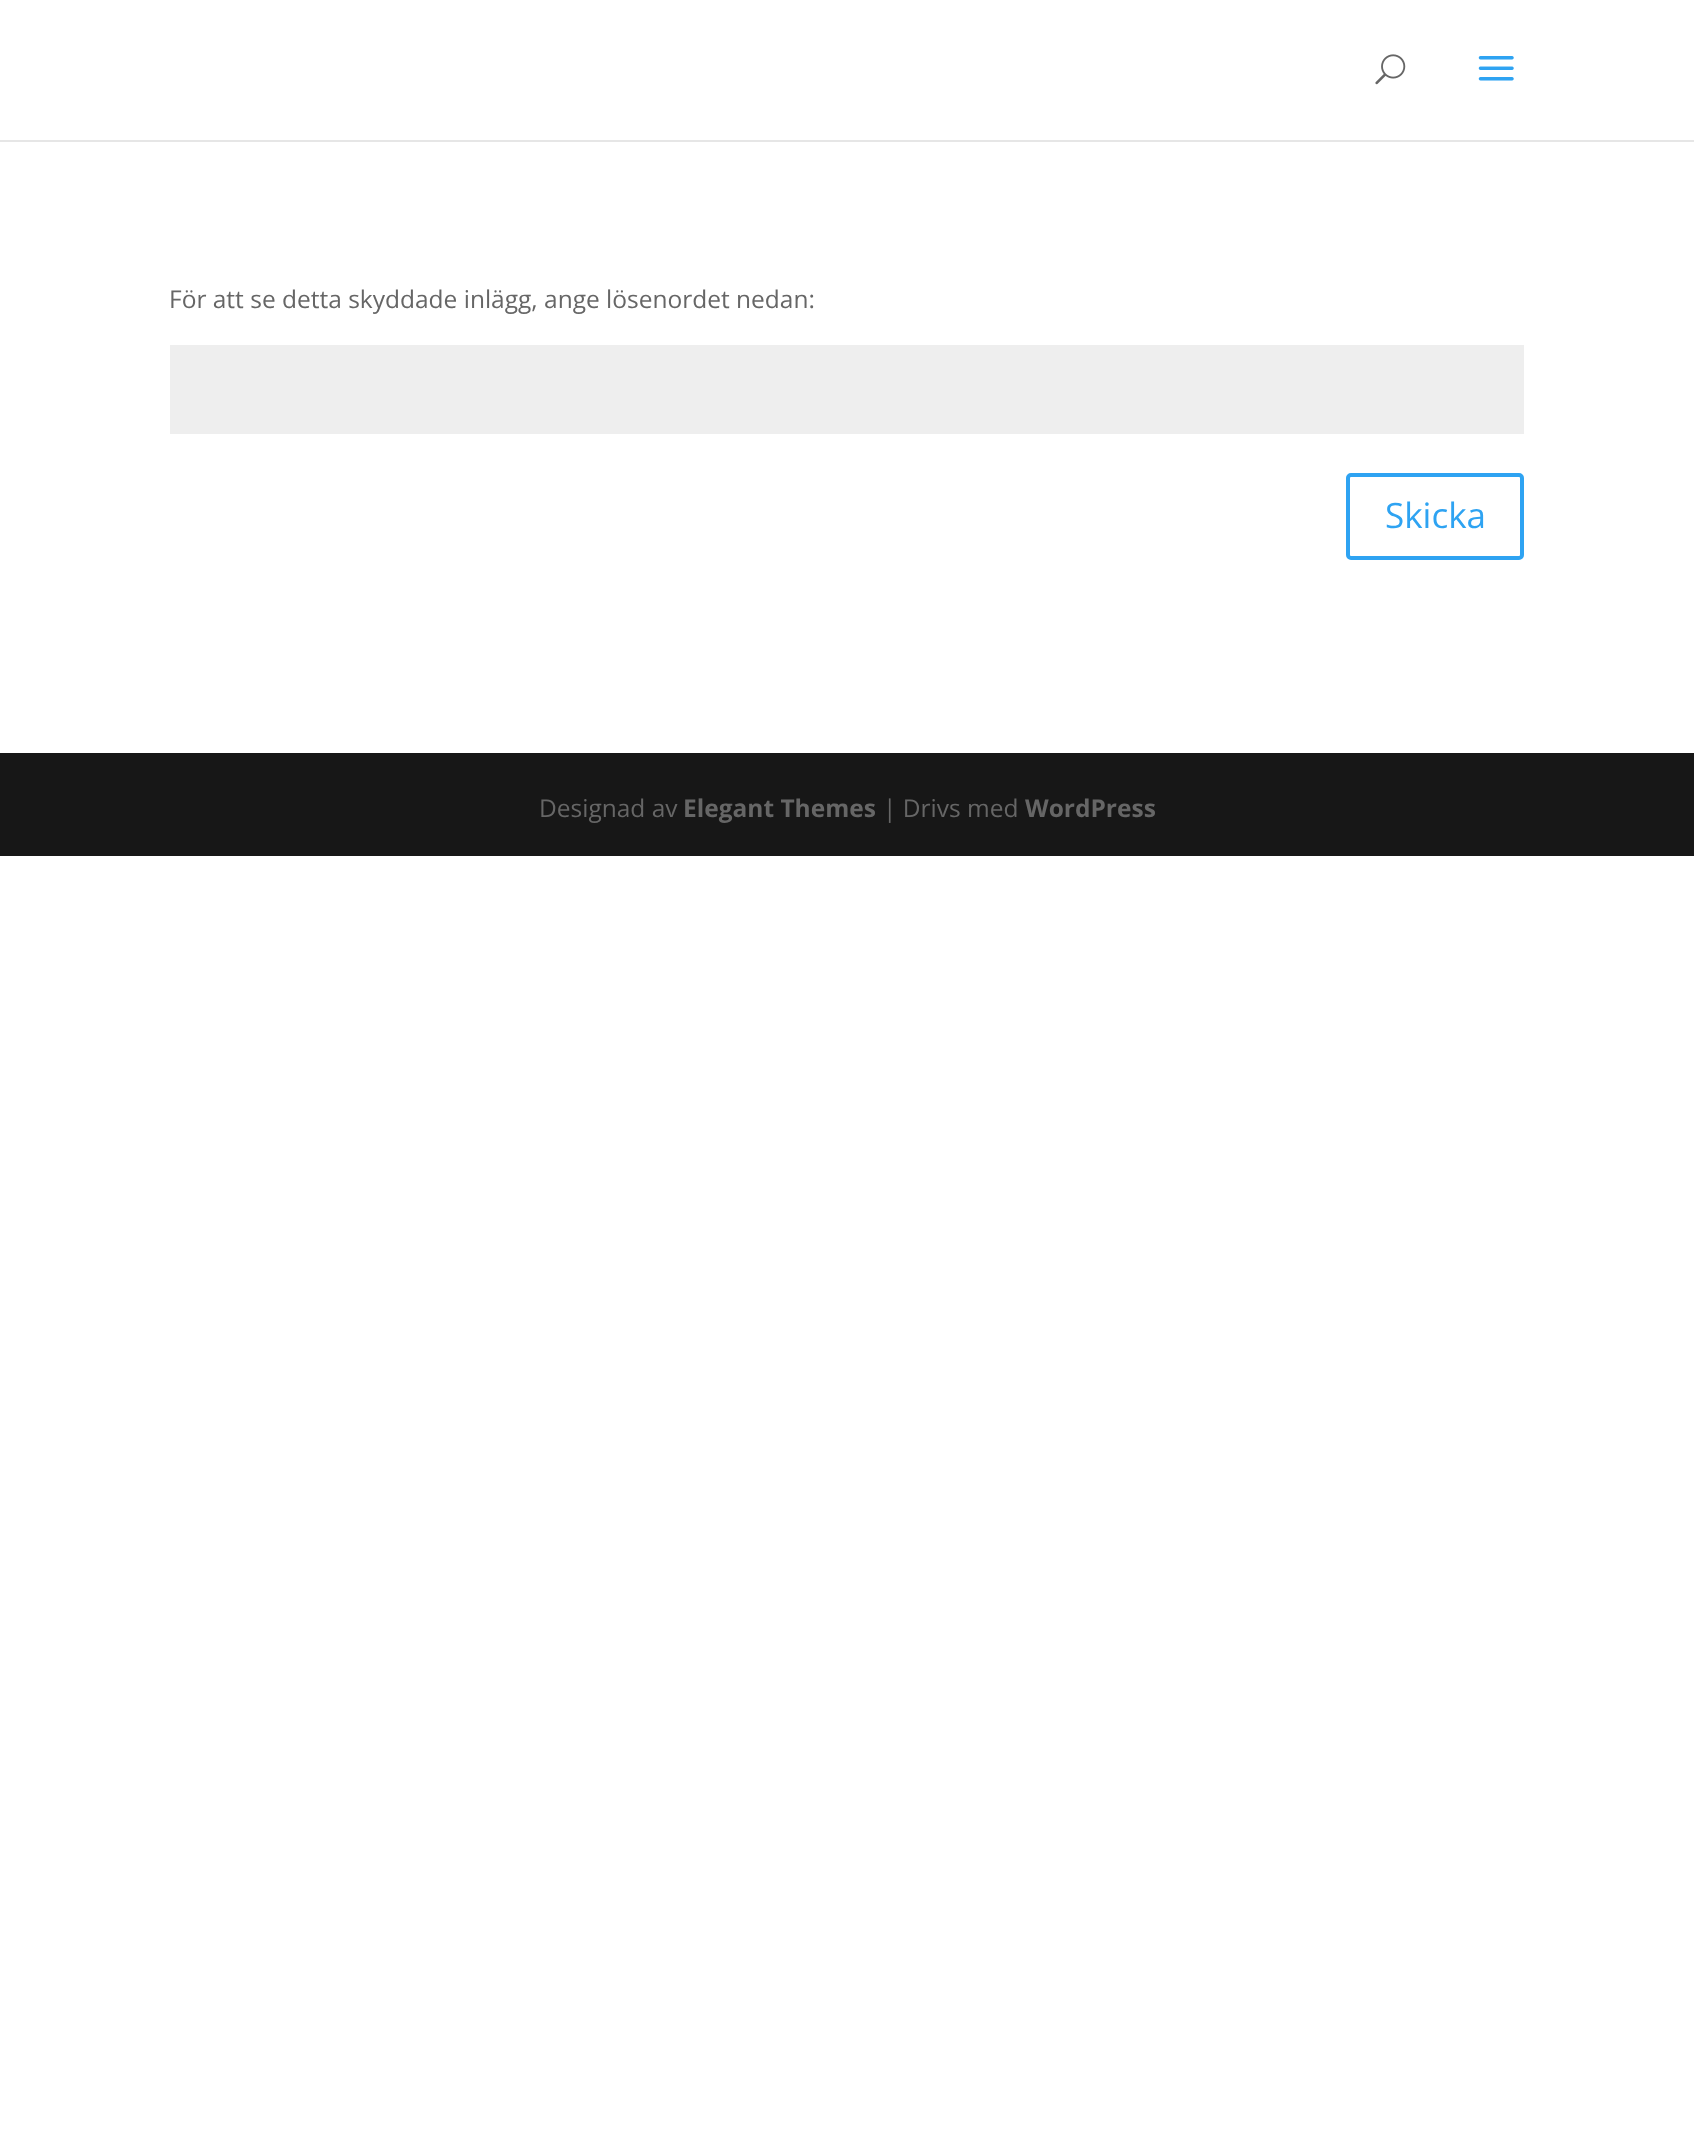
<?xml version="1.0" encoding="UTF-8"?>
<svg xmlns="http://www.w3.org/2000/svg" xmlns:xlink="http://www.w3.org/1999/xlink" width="1694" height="2134">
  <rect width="100%" height="100%" fill="#ffffff" />
  <rect y="140" width="1694" height="2" fill="#e6e6e6" />
  <image x="1375" y="54" width="31" height="31" xlink:href="image1.png" />
  <image x="1478" y="56" width="36" height="25" xlink:href="image2.png" />
  <rect x="170" y="345" width="1354" height="89" fill="#eeeeee" />
  <rect x="1348" y="475" width="174" height="83" rx="3" fill="none" stroke="#2ea3f2" stroke-width="4" />
  <rect y="753" width="1694" height="103" fill="#171717" />
  <text x="169" y="308" style="font-family: Open Sans; font-size: 24.5px; fill: #666666">För att se detta skyddade inlägg, ange lösenordet nedan:</text>
  <text x="1385" y="528" style="font-family: Open Sans; font-size: 35px; fill: #2ea3f2">Skicka</text>
  <text x="539" y="817" style="font-family: Open Sans; font-size: 24.5px; fill: #666666">Designad av</text>
  <text x="683" y="817" style="font-family: Open Sans; font-size: 24.5px; font-weight: bold; fill: #666666">Elegant Themes</text>
  <text x="883" y="817" style="font-family: Open Sans; font-size: 24.5px; fill: #666666">| Drivs med</text>
  <text x="1025" y="817" style="font-family: Open Sans; font-size: 24.5px; font-weight: bold; fill: #666666">WordPress</text>
</svg>
